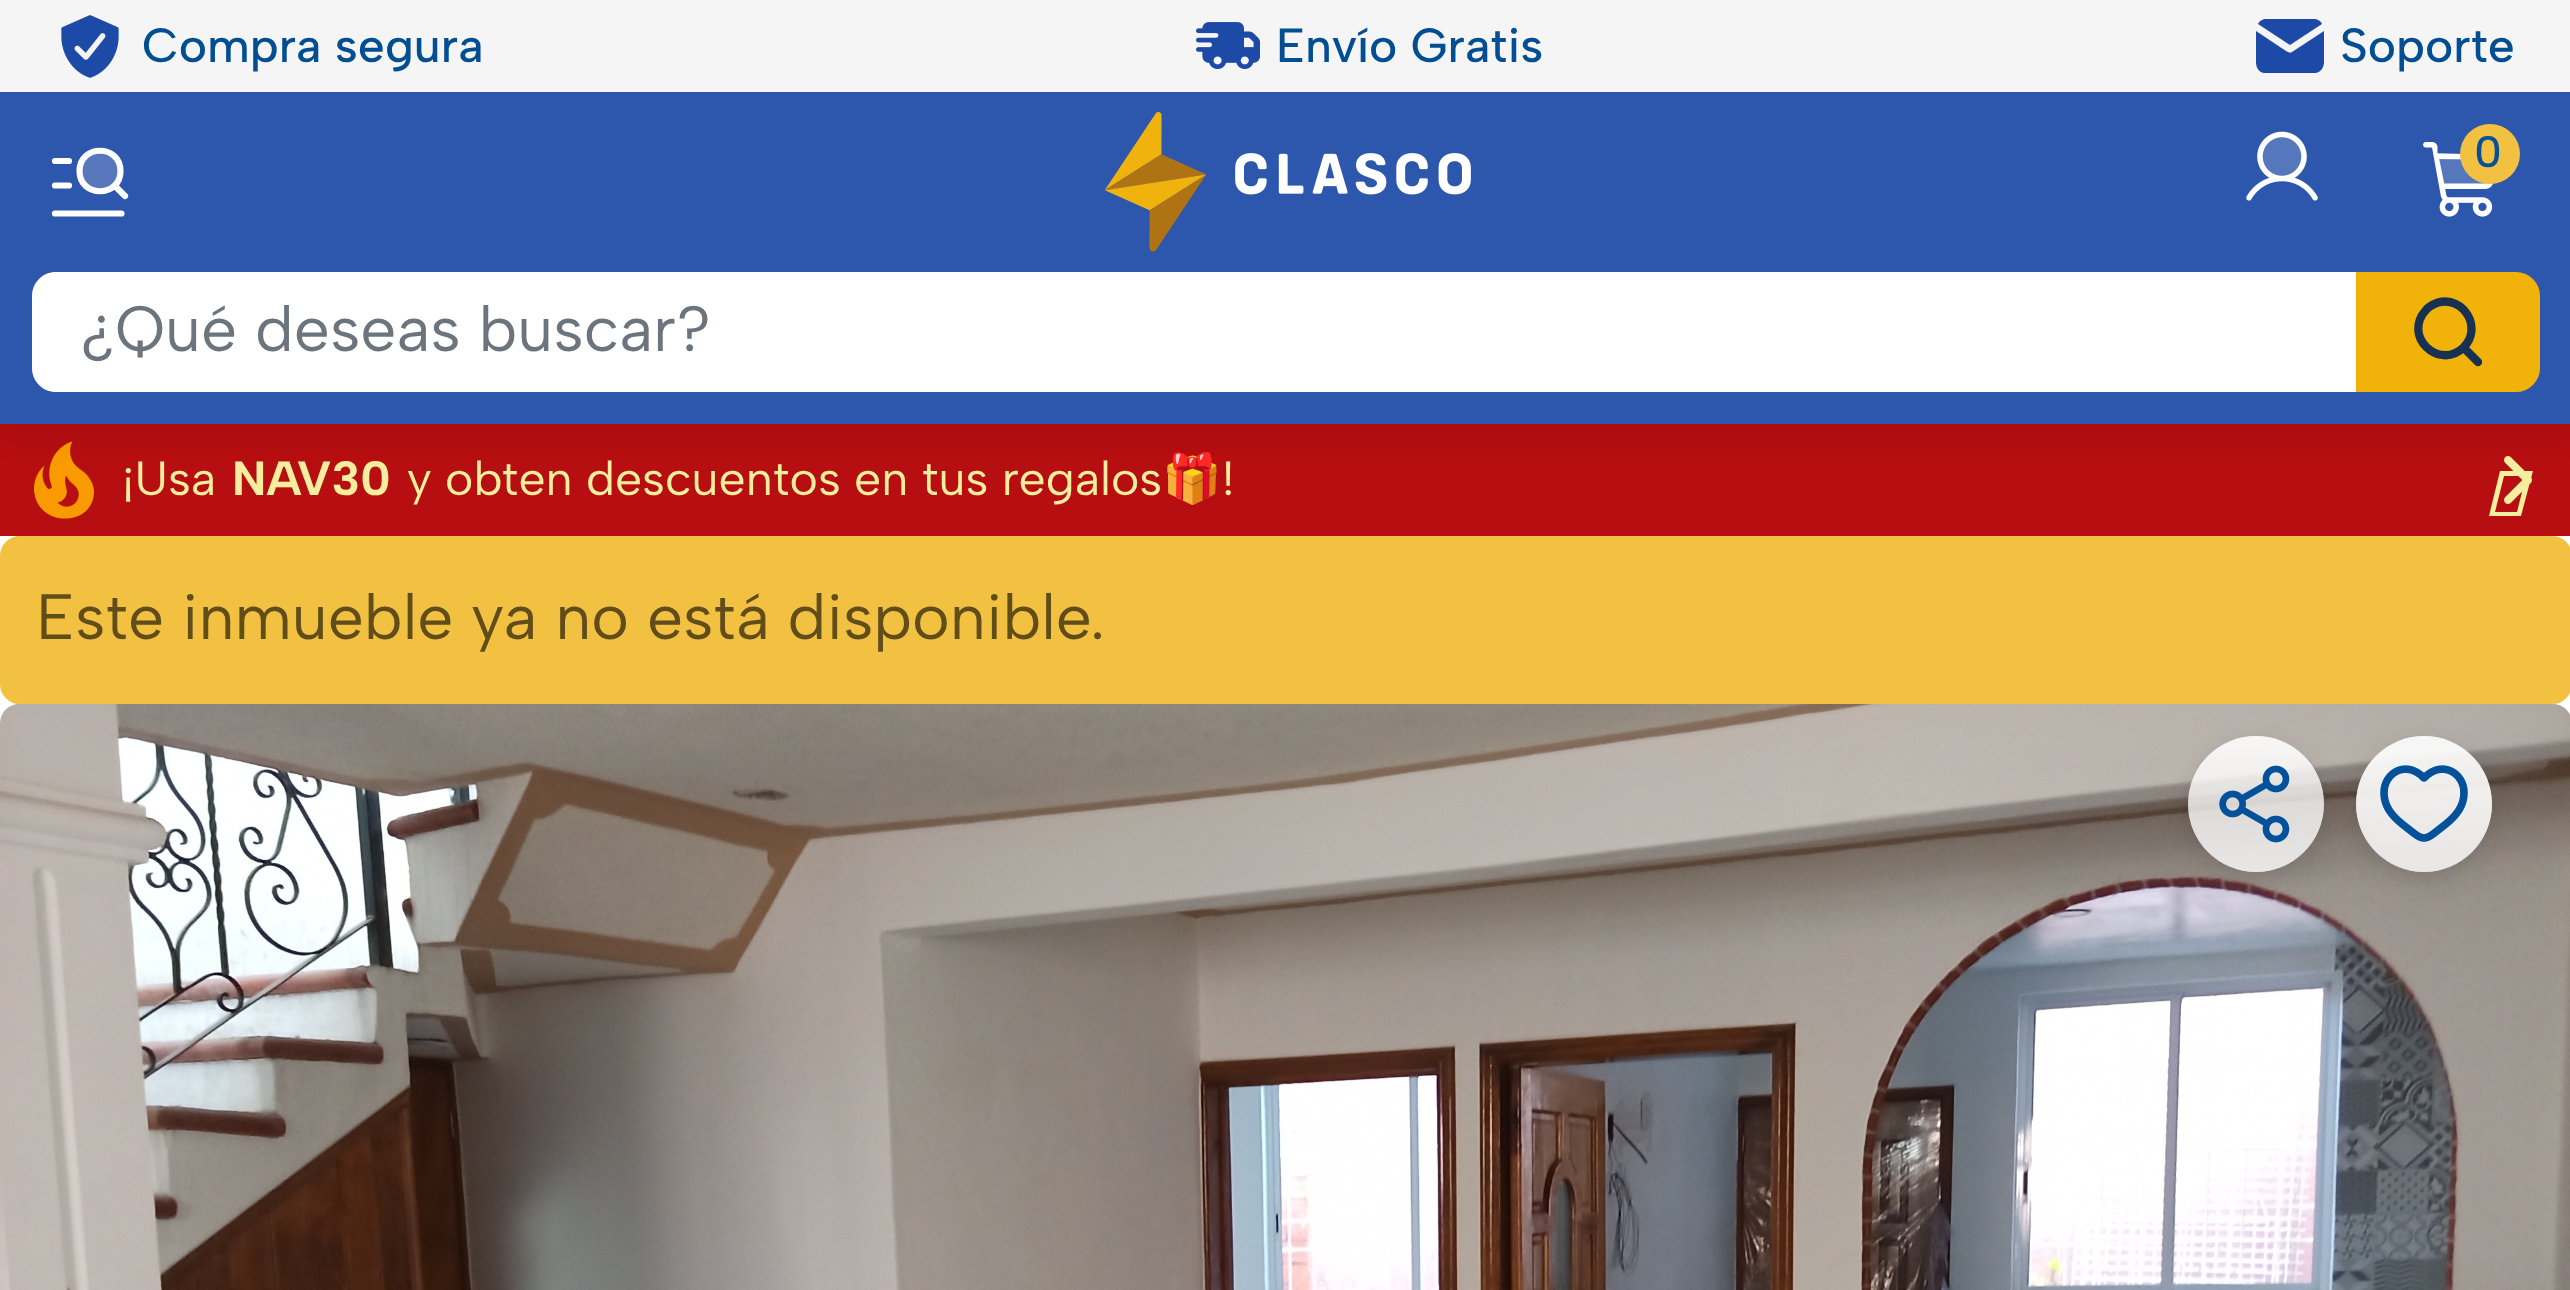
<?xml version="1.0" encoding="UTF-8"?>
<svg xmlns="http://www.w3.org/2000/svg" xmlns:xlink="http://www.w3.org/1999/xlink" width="2570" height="1290">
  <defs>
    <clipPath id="clip1"><rect x="2256" y="12" width="68" height="68" /></clipPath>
    <clipPath id="clip2"><path d="M 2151 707 h 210 v 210 h -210 z m 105 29 c 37.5 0 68 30.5 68 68 c 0 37.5 -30.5 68 -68 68 c -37.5 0 -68 -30.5 -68 -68 c 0 -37.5 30.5 -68 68 -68 z" clip-rule="evenodd" /></clipPath>
    <linearGradient id="g1" gradientUnits="userSpaceOnUse" x1="2256" y1="872" x2="2256" y2="736"><stop offset="0" stop-color="#ffffff" stop-opacity="0.54" /><stop offset="0.6" stop-color="#ffffff" stop-opacity="0.48" /><stop offset="1" stop-color="#ffffff" stop-opacity="0.76" /></linearGradient>
    <clipPath id="clip3"><path d="M 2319 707 h 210 v 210 h -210 z m 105 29 c 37.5 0 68 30.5 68 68 c 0 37.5 -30.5 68 -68 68 c -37.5 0 -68 -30.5 -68 -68 c 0 -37.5 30.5 -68 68 -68 z" clip-rule="evenodd" /></clipPath>
    <linearGradient id="g2" gradientUnits="userSpaceOnUse" x1="2424" y1="872" x2="2424" y2="736"><stop offset="0" stop-color="#ffffff" stop-opacity="0.54" /><stop offset="0.6" stop-color="#ffffff" stop-opacity="0.78" /><stop offset="1" stop-color="#ffffff" stop-opacity="0.76" /></linearGradient>
  </defs>
  <rect width="100%" height="100%" fill="#ffffff" />
  <rect width="2570" height="92" fill="#f5f5f5" />
  <image x="61" y="15" width="58" height="63" xlink:href="image1.png" />
  <image x="1196" y="22" width="64" height="47" xlink:href="image2.png" />
  <g clip-path="url(#clip1)">
    <path d="M 2324 31 v 21 c 0 8 2 18 -8 21 h -52 c -10 -2 -8 -13 -8 -21 v -21 l 27 18 c 2 1 6 5 9 3 z" fill="#1d49a7" />
  </g>
  <path d="M 2314 19 c 3 0 7 2 8 5 l -32 21 l -32 -21 c 1 -3 5 -5 8 -5 z" fill="#1d49a7" />
  <rect y="424" width="2570" height="112" fill="#b70e11" />
  <image x="34" y="441" width="60" height="78" xlink:href="image6.png" />
  <image x="2504" y="456" width="28" height="48" xlink:href="image7.png" />
  <path d="M 2489 516 l 11 -45 h 33 l -12 45 z m 6 -4 h 22 l 9 -36 h -22 z" fill="#f5ee9e" />
  <rect y="112" width="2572" height="332" fill="#000000" fill-opacity="0.05" filter="blur(10px)" />
  <rect y="92" width="2570" height="332" fill="#2d56ad" />
  <path d="M 119 171 c 0 23 -41 23 -40 -1 c 1 -22 40 -22 40 1" fill="#5778bd" />
  <path d="M 55 161 h 14 m -14 24.5 h 14 m -14 28 h 66.5 m -5.5 -26.5 l 9 9 m -4.5 -25 c 0 -27 -41 -27 -41 0 c 0 27 41 27 41 0" fill="none" stroke="#ffffff" stroke-width="6.2" stroke-linecap="round" stroke-linejoin="round" />
  <image x="1105" y="112" width="366" height="140" xlink:href="image3.png" />
  <image x="2246" y="131" width="72" height="70" xlink:href="image4.png" />
  <image x="2423" y="142" width="71" height="75" xlink:href="image5.png" />
  <circle cx="2490" cy="154" r="30" fill="#f2c142" />
  <path d="M 56 272 h 2300 v 120 h -2300 c -13.5 0 -24 -10.5 -24 -24 v -72 c 0 -13.5 10.5 -24 24 -24 z" fill="#ffffff" />
  <path d="M 2358 274 h 158 c 12 0 22 10 22 22 v 72 c 0 12 -10 22 -22 22 h -158 z" fill="#f1b209" stroke="#f1b209" stroke-width="4" />
  <path d="M 2478 362 l -14.5 -14.5 m 0 0 c 19.5 -19 0.5 -52 -25.5 -45 c -4.5 1.5 -9 4 -12 7.5 c -24 26 13 61 37.5 37.5" fill="none" stroke="#183151" stroke-width="8.3" stroke-linecap="round" stroke-linejoin="round" />
  <rect x="2" y="538" width="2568" height="164" rx="18" fill="#f2c142" stroke="#f2c142" stroke-width="4" />
  <image x="0" y="704" width="2570" height="586" xlink:href="image8.png" />
  <g clip-path="url(#clip2)">
    <rect x="2188" y="744" width="136" height="136" rx="68" fill="#000000" fill-opacity="0.12" filter="blur(12px)" />
  </g>
  <circle cx="2256" cy="804" r="68" fill="url(#g1)" />
  <circle cx="2256" cy="804" r="68" fill="#ffffff" fill-opacity="0.55" />
  <image x="2219" y="765" width="71" height="78" xlink:href="image9.png" />
  <g clip-path="url(#clip3)">
    <rect x="2356" y="744" width="136" height="136" rx="68" fill="#000000" fill-opacity="0.12" filter="blur(12px)" />
  </g>
  <circle cx="2424" cy="804" r="68" fill="url(#g2)" />
  <circle cx="2424" cy="804" r="68" fill="#ffffff" fill-opacity="0.55" />
  <image x="2380" y="765" width="88" height="77" xlink:href="image10.png" />
  <text x="142" y="62" style="font-family: Albert Sans; font-size: 48px; font-weight: 500; fill: #024e93">Compra segura</text>
  <text x="1276" y="62" style="font-family: Albert Sans; font-size: 48px; font-weight: 500; fill: #024e93">Envío Gratis</text>
  <text x="2340" y="62" style="font-family: Albert Sans; font-size: 48px; font-weight: 500; fill: #024e93">Soporte</text>
  <text x="2474" y="167" style="font-family: Albert Sans; font-size: 44px; font-weight: 500; fill: #02519a">0</text>
  <text x="80" y="351" style="font-family: Albert Sans; font-size: 64px; fill: #6c757d">¿Qué deseas buscar?</text>
  <text x="122" y="495" style="font-family: Albert Sans; font-size: 48px; fill: #f5ee9e">¡Usa</text>
  <text x="232" y="495" style="font-family: Albert Sans; font-size: 48px; font-weight: bold; fill: #f5ee9e">NAV30</text>
  <text x="407" y="495" style="font-family: Albert Sans; font-size: 48px; fill: #f5ee9e">y obten descuentos en tus regalos</text>
  <text x="1162" y="495" style="font-family: Noto Color Emoji; font-size: 48px; fill: #f5ee9e">🎁</text>
  <text x="1222" y="495" style="font-family: Albert Sans; font-size: 48px; fill: #f5ee9e">!</text>
  <text x="36" y="639" style="font-family: Albert Sans; font-size: 64px; fill: #614d1a">Este inmueble ya no está disponible.</text>
</svg>
